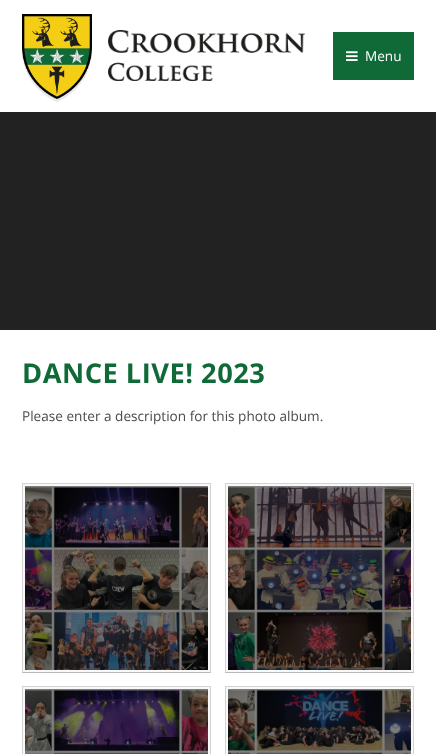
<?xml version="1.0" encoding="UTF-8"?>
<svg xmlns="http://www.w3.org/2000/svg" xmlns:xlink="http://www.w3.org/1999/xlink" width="436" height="754">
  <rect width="100%" height="100%" fill="#ffffff" />
  <image x="22" y="14" width="70" height="88" xlink:href="image1.png" />
  <image x="108" y="30" width="197" height="51" xlink:href="image2.png" />
  <rect x="333" y="32" width="81" height="48" fill="#106a38" />
  <image x="346" y="51" width="12" height="10" xlink:href="image3.png" />
  <rect y="112" width="436" height="218" fill="#222222" />
  <rect x="22" y="483" width="189" height="190" fill="#f8f8f8" />
  <path d="M 22 483 h 189 l -1 1 h -187 z" fill="#d3d3d3" />
  <path d="M 211 483 v 190 l -1 -1 v -188 z" fill="#000000" fill-opacity="0.15" />
  <path d="M 211 673 h -189 l 1 -1 h 187 z" fill="#000000" fill-opacity="0.25" />
  <path d="M 22 673 v -190 l 1 1 v 188 z" fill="#000000" fill-opacity="0.15" />
  <rect x="25" y="486" width="183" height="184" fill="#000000" />
  <image x="25" y="486" width="183" height="184" xlink:href="image4.png" />
  <rect x="225" y="483" width="189" height="190" fill="#f8f8f8" />
  <path d="M 225 483 h 189 l -1 1 h -187 z" fill="#d3d3d3" />
  <path d="M 414 483 v 190 l -1 -1 v -188 z" fill="#000000" fill-opacity="0.15" />
  <path d="M 414 673 h -189 l 1 -1 h 187 z" fill="#000000" fill-opacity="0.25" />
  <path d="M 225 673 v -190 l 1 1 v 188 z" fill="#000000" fill-opacity="0.15" />
  <rect x="228" y="486" width="183" height="184" fill="#000000" />
  <image x="228" y="486" width="183" height="184" xlink:href="image5.png" />
  <rect x="22" y="686" width="189" height="68" fill="#f8f8f8" />
  <path d="M 22 686 h 189 l -1 1 h -187 z" fill="#d3d3d3" />
  <path d="M 211 686 v 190 l -1 -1 v -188 z" fill="#000000" fill-opacity="0.15" />
  <path d="M 22 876 v -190 l 1 1 v 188 z" fill="#000000" fill-opacity="0.15" />
  <rect x="25" y="689" width="183" height="65" fill="#000000" />
  <image x="25" y="689" width="183" height="65" xlink:href="image6.png" />
  <rect x="225" y="686" width="189" height="68" fill="#f8f8f8" />
  <path d="M 225 686 h 189 l -1 1 h -187 z" fill="#d3d3d3" />
  <path d="M 414 686 v 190 l -1 -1 v -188 z" fill="#000000" fill-opacity="0.15" />
  <path d="M 225 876 v -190 l 1 1 v 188 z" fill="#000000" fill-opacity="0.15" />
  <rect x="228" y="689" width="183" height="65" fill="#000000" />
  <image x="228" y="689" width="183" height="65" xlink:href="image7.png" />
  <text x="365" y="61" style="font-family: Open Sans; font-size: 13.6px; fill: #ffffff">Menu</text>
  <text x="22" y="383" style="font-family: Open Sans; font-size: 27.25px; font-weight: bold; letter-spacing: 0.5px; fill: #106a38">DANCE LIVE! 2023</text>
  <text x="22" y="421" style="font-family: Open Sans; font-size: 13.6px; fill: #4a4a4a">Please enter a description for this photo album.</text>
</svg>
